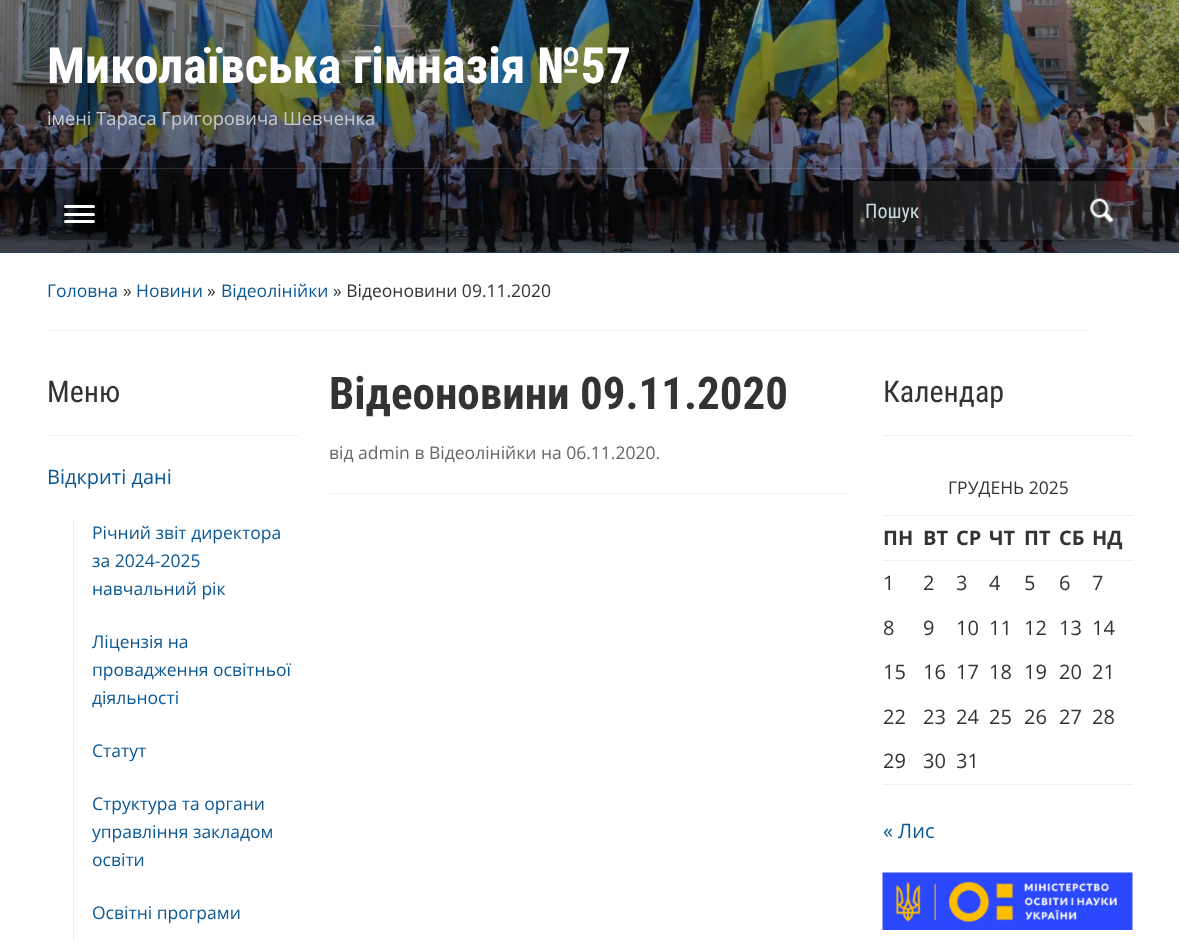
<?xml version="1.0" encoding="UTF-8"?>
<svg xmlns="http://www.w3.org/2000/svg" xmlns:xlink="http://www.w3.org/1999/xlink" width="1179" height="940">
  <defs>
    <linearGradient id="g1" gradientUnits="userSpaceOnUse" x1="590" y1="0" x2="590" y2="253"><stop offset="0" stop-color="#000000" stop-opacity="0.3" /><stop offset="1" stop-color="#000000" stop-opacity="0.5" /></linearGradient>
  </defs>
  <rect width="100%" height="100%" fill="#ffffff" />
  <rect y="252" width="1179" height="1" fill="#1093ea" />
  <image x="0" y="0" width="1179" height="253" xlink:href="image1.png" />
  <rect width="1179" height="253" fill="url(#g1)" />
  <rect y="168" width="1179" height="1" fill="#ffffff" fill-opacity="0.13" />
  <rect x="48" y="188" width="63" height="52" rx="2.5" fill="#000000" fill-opacity="0.33" />
  <rect x="64" y="205" width="31" height="3" rx="1.5" fill="#ffffff" />
  <rect x="64" y="213" width="31" height="3" rx="1.5" fill="#ffffff" />
  <rect x="64" y="220" width="31" height="3" rx="1.5" fill="#ffffff" />
  <rect x="853" y="181" width="280" height="59" rx="4" fill="#ffffff" fill-opacity="0.1" />
  <image x="1090" y="198" width="24" height="25" xlink:href="image2.png" />
  <rect x="48" y="330" width="1041" height="1" fill="#eeeeee" />
  <rect x="48" y="435" width="250" height="1" fill="#eeeeee" />
  <rect x="73" y="519" width="1" height="421" fill="#eeeeee" />
  <rect x="330" y="493" width="520" height="1" fill="#eeeeee" />
  <rect x="883" y="435" width="250" height="1" fill="#eeeeee" />
  <rect x="883" y="784" width="250" height="1" fill="#eeeeee" />
  <rect x="883" y="515" width="251" height="1" fill="#eeeeee" />
  <rect x="883" y="560" width="251" height="1" fill="#eeeeee" />
  <image x="882" y="872" width="251" height="58" xlink:href="image3.png" />
  <text x="47" y="83" style="font-family: Roboto Condensed; font-size: 50px; font-weight: bold; fill: #ffffff">Миколаївська гімназія №57</text>
  <text x="47" y="125" style="font-family: Open Sans; font-size: 18.3px; fill: #c9ccce">імені Тараса Григоровича Шевченка</text>
  <text x="865" y="218" style="font-family: Roboto Condensed; font-size: 20px; fill: #c6d9db">Пошук</text>
  <text x="47" y="297" style="font-family: Open Sans; font-size: 17.5px; fill: #0a5794">Головна</text>
  <text x="123" y="297" style="font-family: Open Sans; font-size: 17.5px; fill: #333333">»</text>
  <text x="136" y="297" style="font-family: Open Sans; font-size: 17.5px; fill: #0a5794">Новини</text>
  <text x="207" y="297" style="font-family: Open Sans; font-size: 17.5px; fill: #333333">»</text>
  <text x="221" y="297" style="font-family: Open Sans; font-size: 17.5px; fill: #0a5794">Відеолінійки</text>
  <text x="333" y="297" style="font-family: Open Sans; font-size: 17.5px; fill: #333333">» Відеоновини 09.11.2020</text>
  <text x="47" y="402" style="font-family: Roboto Condensed; font-size: 30px; fill: #333333">Меню</text>
  <text x="47" y="484" style="font-family: Open Sans; font-size: 20px; fill: #0a5794">Відкриті дані</text>
  <text x="92" y="539" style="font-family: Open Sans; font-size: 17.5px; fill: #0a5794">Річний звіт директора</text>
  <text x="92" y="567" style="font-family: Open Sans; font-size: 17.5px; fill: #0a5794">за 2024-2025</text>
  <text x="92" y="595" style="font-family: Open Sans; font-size: 17.5px; fill: #0a5794">навчальний рік</text>
  <text x="92" y="648" style="font-family: Open Sans; font-size: 17.5px; fill: #0a5794">Ліцензія на</text>
  <text x="92" y="676" style="font-family: Open Sans; font-size: 17.5px; fill: #0a5794">провадження освітньої</text>
  <text x="92" y="704" style="font-family: Open Sans; font-size: 17.5px; fill: #0a5794">діяльності</text>
  <text x="92" y="757" style="font-family: Open Sans; font-size: 17.5px; fill: #0a5794">Статут</text>
  <text x="92" y="810" style="font-family: Open Sans; font-size: 17.5px; fill: #0a5794">Структура та органи</text>
  <text x="92" y="838" style="font-family: Open Sans; font-size: 17.5px; fill: #0a5794">управління закладом</text>
  <text x="92" y="866" style="font-family: Open Sans; font-size: 17.5px; fill: #0a5794">освіти</text>
  <text x="92" y="919" style="font-family: Open Sans; font-size: 17.5px; fill: #0a5794">Освiтнi програми</text>
  <text x="329" y="409" style="font-family: Roboto Condensed; font-size: 45px; font-weight: bold; fill: #333333">Відеоновини 09.11.2020</text>
  <text x="329" y="459" style="font-family: Open Sans; font-size: 17.5px; fill: #666666">від admin в Відеолінійки на 06.11.2020.</text>
  <text x="883" y="402" style="font-family: Roboto Condensed; font-size: 30px; fill: #333333">Календар</text>
  <text x="948" y="494" style="font-family: Open Sans; font-size: 17.5px; fill: #333333">ГРУДЕНЬ 2025</text>
  <text x="883" y="545" style="font-family: Open Sans; font-size: 20px; font-weight: bold; fill: #333333">ПН</text>
  <text x="923" y="545" style="font-family: Open Sans; font-size: 20px; font-weight: bold; fill: #333333">ВТ</text>
  <text x="956" y="545" style="font-family: Open Sans; font-size: 20px; font-weight: bold; fill: #333333">СР</text>
  <text x="989" y="545" style="font-family: Open Sans; font-size: 20px; font-weight: bold; fill: #333333">ЧТ</text>
  <text x="1024" y="545" style="font-family: Open Sans; font-size: 20px; font-weight: bold; fill: #333333">ПТ</text>
  <text x="1059" y="545" style="font-family: Open Sans; font-size: 20px; font-weight: bold; fill: #333333">СБ</text>
  <text x="1092" y="545" style="font-family: Open Sans; font-size: 20px; font-weight: bold; fill: #333333">НД</text>
  <text x="883" y="590" style="font-family: Open Sans; font-size: 20px; fill: #333333">1</text>
  <text x="923" y="590" style="font-family: Open Sans; font-size: 20px; fill: #333333">2</text>
  <text x="956" y="590" style="font-family: Open Sans; font-size: 20px; fill: #333333">3</text>
  <text x="989" y="590" style="font-family: Open Sans; font-size: 20px; fill: #333333">4</text>
  <text x="1024" y="590" style="font-family: Open Sans; font-size: 20px; fill: #333333">5</text>
  <text x="1059" y="590" style="font-family: Open Sans; font-size: 20px; fill: #333333">6</text>
  <text x="1092" y="590" style="font-family: Open Sans; font-size: 20px; fill: #333333">7</text>
  <text x="883" y="635" style="font-family: Open Sans; font-size: 20px; fill: #333333">8</text>
  <text x="923" y="635" style="font-family: Open Sans; font-size: 20px; fill: #333333">9</text>
  <text x="956" y="635" style="font-family: Open Sans; font-size: 20px; fill: #333333">10</text>
  <text x="989" y="635" style="font-family: Open Sans; font-size: 20px; fill: #333333">11</text>
  <text x="1024" y="635" style="font-family: Open Sans; font-size: 20px; fill: #333333">12</text>
  <text x="1059" y="635" style="font-family: Open Sans; font-size: 20px; fill: #333333">13</text>
  <text x="1092" y="635" style="font-family: Open Sans; font-size: 20px; fill: #333333">14</text>
  <text x="883" y="679" style="font-family: Open Sans; font-size: 20px; fill: #333333">15</text>
  <text x="923" y="679" style="font-family: Open Sans; font-size: 20px; fill: #333333">16</text>
  <text x="956" y="679" style="font-family: Open Sans; font-size: 20px; fill: #333333">17</text>
  <text x="989" y="679" style="font-family: Open Sans; font-size: 20px; fill: #333333">18</text>
  <text x="1024" y="679" style="font-family: Open Sans; font-size: 20px; fill: #333333">19</text>
  <text x="1059" y="679" style="font-family: Open Sans; font-size: 20px; fill: #333333">20</text>
  <text x="1092" y="679" style="font-family: Open Sans; font-size: 20px; fill: #333333">21</text>
  <text x="883" y="724" style="font-family: Open Sans; font-size: 20px; fill: #333333">22</text>
  <text x="923" y="724" style="font-family: Open Sans; font-size: 20px; fill: #333333">23</text>
  <text x="956" y="724" style="font-family: Open Sans; font-size: 20px; fill: #333333">24</text>
  <text x="989" y="724" style="font-family: Open Sans; font-size: 20px; fill: #333333">25</text>
  <text x="1024" y="724" style="font-family: Open Sans; font-size: 20px; fill: #333333">26</text>
  <text x="1059" y="724" style="font-family: Open Sans; font-size: 20px; fill: #333333">27</text>
  <text x="1092" y="724" style="font-family: Open Sans; font-size: 20px; fill: #333333">28</text>
  <text x="883" y="768" style="font-family: Open Sans; font-size: 20px; fill: #333333">29</text>
  <text x="923" y="768" style="font-family: Open Sans; font-size: 20px; fill: #333333">30</text>
  <text x="956" y="768" style="font-family: Open Sans; font-size: 20px; fill: #333333">31</text>
  <text x="883" y="838" style="font-family: Open Sans; font-size: 20px; fill: #0a5794">« Лис</text>
</svg>
